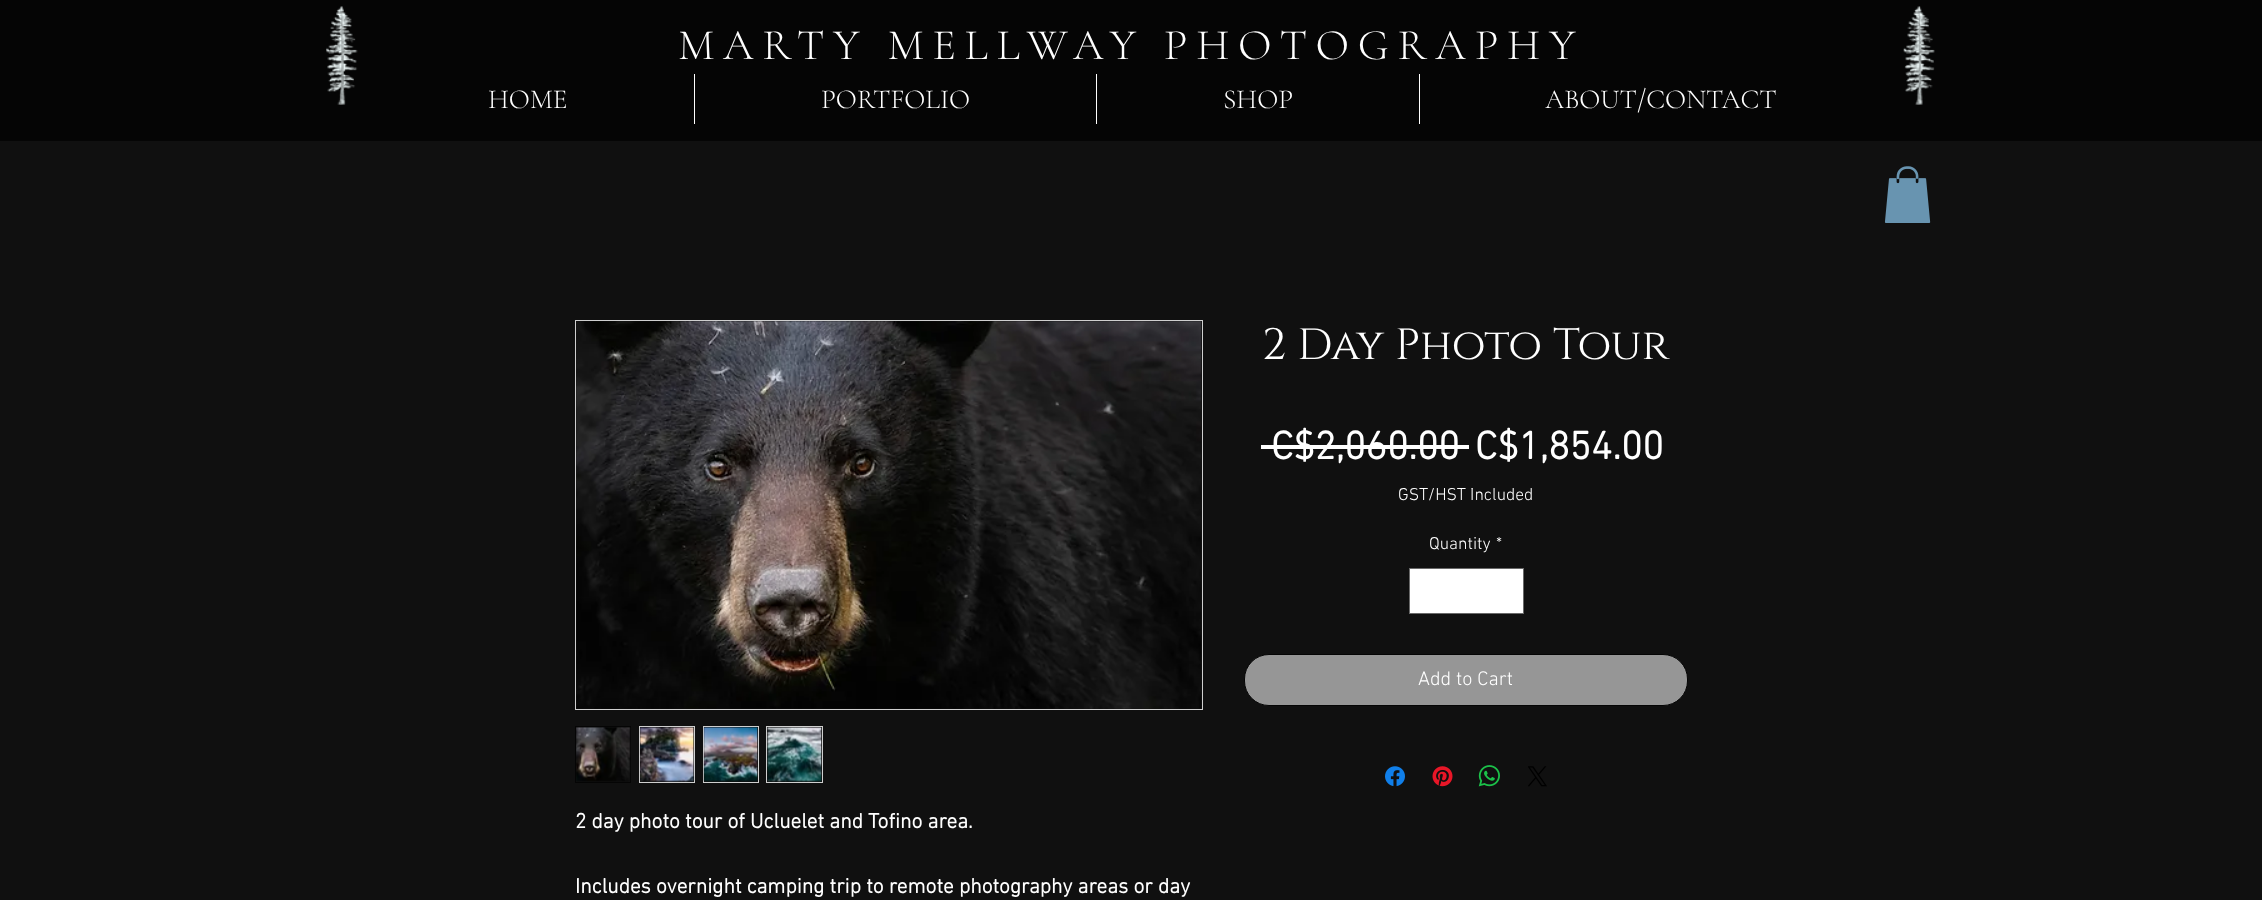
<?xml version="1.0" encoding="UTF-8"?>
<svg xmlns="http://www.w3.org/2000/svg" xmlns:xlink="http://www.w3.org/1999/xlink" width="2262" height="900">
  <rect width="100%" height="100%" fill="#050505" />
  <image x="326" y="6" width="32" height="99" xlink:href="image1.png" />
  <image x="1903" y="6" width="32" height="99" xlink:href="image2.png" />
  <rect x="694" y="74" width="1" height="50" fill="#ffffff" />
  <rect x="1096" y="74" width="1" height="50" fill="#ffffff" />
  <rect x="1419" y="74" width="1" height="50" fill="#ffffff" />
  <rect y="141" width="2262" height="759" fill="#101010" />
  <image x="1884" y="166" width="47" height="57" xlink:href="image3.png" />
  <rect x="1261" y="445" width="208" height="4" fill="#ffffff" />
  <rect x="1409.5" y="568.5" width="114" height="45" fill="#ffffff" stroke="#696969" />
  <rect x="1244.5" y="654.5" width="443" height="51" rx="24.5" fill="#969696" stroke="#050505" />
  <image x="1385" y="766" width="20" height="21" xlink:href="image4.png" />
  <image x="1432" y="766" width="21" height="21" xlink:href="image5.png" />
  <image x="1478" y="765" width="22" height="22" xlink:href="image6.png" />
  <image x="1528" y="766" width="19" height="21" xlink:href="image7.png" />
  <rect x="575.5" y="320.5" width="627" height="389" fill="none" stroke="#cfcfcf" />
  <image x="576" y="321" width="626" height="388" xlink:href="image8.png" />
  <rect x="575.5" y="726.5" width="55" height="56" fill="none" stroke="#050505" />
  <image x="576" y="727" width="55" height="55" xlink:href="image9.png" />
  <rect x="639.5" y="726.5" width="55" height="56" fill="none" stroke="#cfcfcf" />
  <image x="639" y="727" width="56" height="55" xlink:href="image10.png" />
  <rect x="703.5" y="726.5" width="55" height="56" fill="none" stroke="#cfcfcf" />
  <image x="703" y="727" width="55" height="55" xlink:href="image11.png" />
  <rect x="766.5" y="726.5" width="56" height="56" fill="none" stroke="#cfcfcf" />
  <image x="767" y="727" width="55" height="55" xlink:href="image12.png" />
  <text x="678" y="59" style="font-family: Cormorant Garamond; font-size: 43.75px; font-weight: 300; letter-spacing: 8.75px; fill: #ffffff">MARTY MELLWAY PHOTOGRAPHY</text>
  <text x="488" y="108" style="font-family: Cormorant Garamond; font-size: 27.5px; font-weight: 300; fill: #ffffff">HOME</text>
  <text x="821" y="108" style="font-family: Cormorant Garamond; font-size: 27.5px; font-weight: 300; fill: #ffffff">PORTFOLIO</text>
  <text x="1223" y="108" style="font-family: Cormorant Garamond; font-size: 27.5px; font-weight: 300; fill: #ffffff">SHOP</text>
  <text x="1545" y="108" style="font-family: Cormorant Garamond; font-size: 27.5px; font-weight: 300; fill: #ffffff">ABOUT/CONTACT</text>
  <text x="1262" y="359" style="font-family: Cinzel; font-size: 43.75px; fill: #ffffff">2 Day Photo Tour</text>
  <text x="1271" y="459" style="font-family: 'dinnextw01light'; font-size: 40px; font-weight: bold; fill: #ffffff">C$2,060.00</text>
  <text x="1475" y="459" style="font-family: 'dinnextw01light'; font-size: 40px; font-weight: bold; fill: #ffffff">C$1,854.00</text>
  <text x="1398" y="500" style="font-family: 'dinnextw01light'; font-size: 17.5px; font-weight: 300; fill: #ffffff">GST/HST Included</text>
  <text x="1429" y="549" style="font-family: 'dinnextw01light'; font-size: 17.5px; font-weight: 300; fill: #ffffff">Quantity</text>
  <text x="1496" y="549" style="font-family: 'dinnextw01light'; font-size: 17.5px; font-weight: 300; fill: #ffffff">*</text>
  <text x="1418" y="685" style="font-family: 'dinnextw01light'; font-size: 20px; font-weight: 300; fill: #ffffff">Add to Cart</text>
  <text x="575" y="828" style="font-family: 'dinnextw01light'; font-size: 21.25px; font-weight: bold; fill: #ffffff">2 day photo tour of Ucluelet and Tofino area.</text>
  <text x="575" y="893" style="font-family: 'dinnextw01light'; font-size: 21.25px; font-weight: bold; fill: #ffffff">Includes overnight camping trip to remote photography areas or day</text>
</svg>
